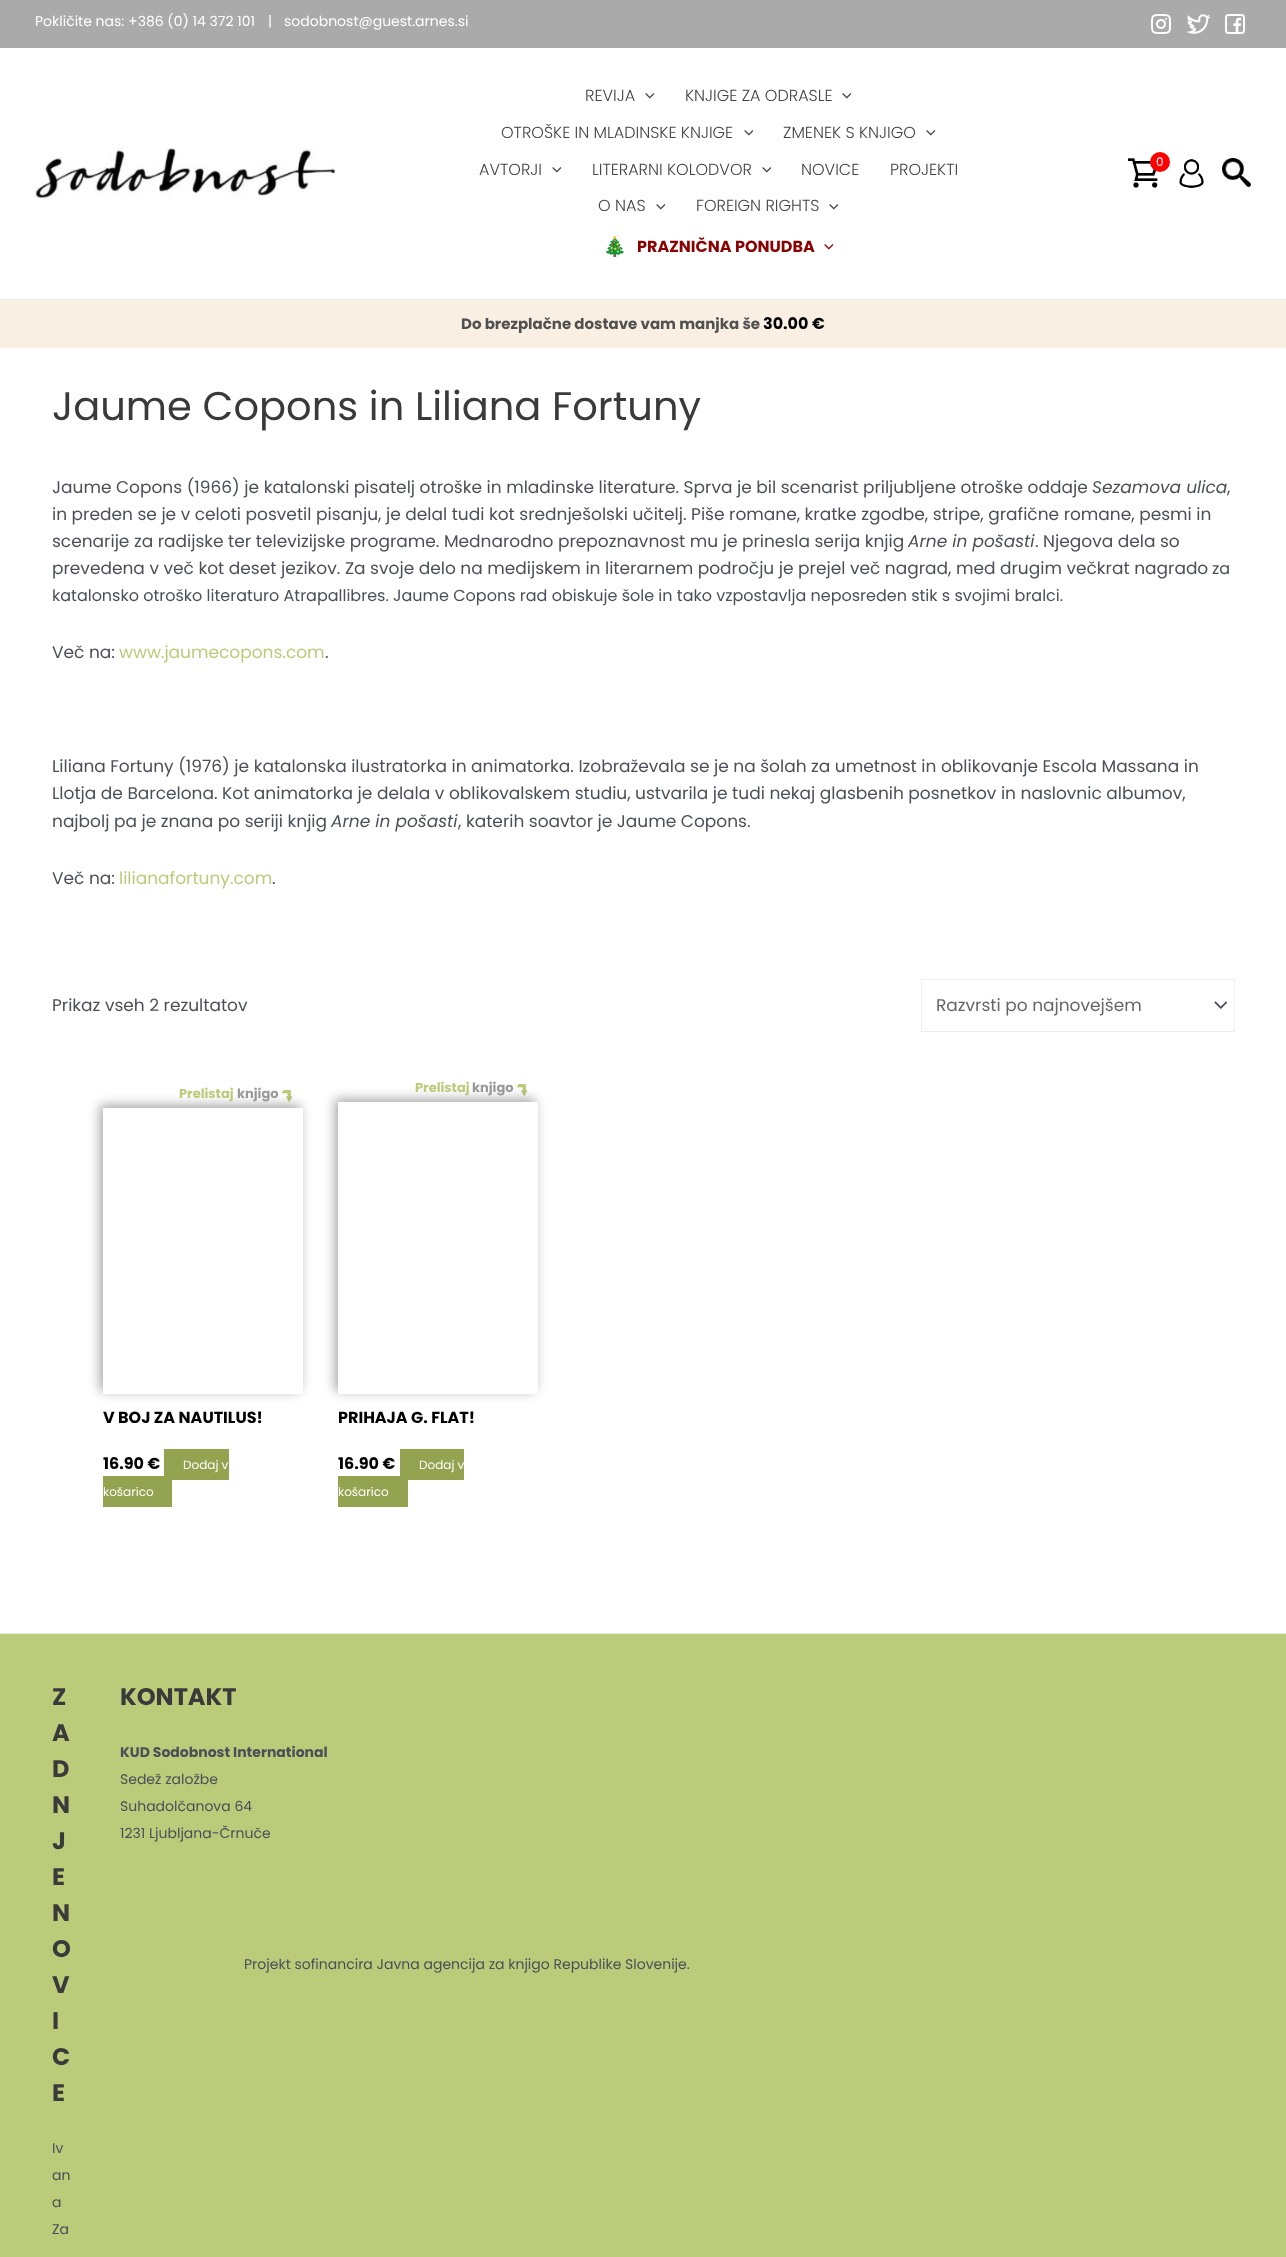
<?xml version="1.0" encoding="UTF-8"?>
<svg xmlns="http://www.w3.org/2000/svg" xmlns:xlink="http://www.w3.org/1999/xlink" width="1286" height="2257">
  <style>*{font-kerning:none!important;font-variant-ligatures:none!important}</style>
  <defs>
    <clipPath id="clip1"><path d="M 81 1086 h 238 v 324 h -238 z m 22 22 h 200 v 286 h -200 z" clip-rule="evenodd" /></clipPath>
    <clipPath id="clip2"><path d="M 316 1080 h 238 v 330 h -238 z m 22 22 h 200 v 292 h -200 z" clip-rule="evenodd" /></clipPath>
  </defs>
  <rect width="100%" height="100%" fill="#ffffff" />
  <rect width="1286" height="48" fill="#aaaaaa" />
  <image x="1151" y="14" width="20" height="20" xlink:href="image1.png" />
  <image x="1186" y="14" width="25" height="20" xlink:href="image2.png" />
  <image x="1225" y="14" width="20" height="20" xlink:href="image3.png" />
  <rect y="299" width="1286" height="1" fill="#eaeaea" />
  <image x="35" y="148" width="300" height="51" xlink:href="image4.png" />
  <image x="645" y="93" width="10" height="6" xlink:href="image5.png" />
  <image x="842" y="93" width="10" height="6" xlink:href="image5.png" />
  <image x="744" y="130" width="9" height="6" xlink:href="image6.png" />
  <image x="926" y="130" width="10" height="6" xlink:href="image5.png" />
  <image x="552" y="167" width="10" height="6" xlink:href="image5.png" />
  <image x="762" y="167" width="9" height="6" xlink:href="image6.png" />
  <image x="656" y="204" width="10" height="6" xlink:href="image5.png" />
  <image x="829" y="204" width="10" height="6" xlink:href="image5.png" />
  <image x="824" y="244" width="10" height="6" xlink:href="image7.png" />
  <image x="1128" y="158" width="30" height="30" xlink:href="image8.png" />
  <circle cx="1160" cy="162" r="10" fill="#ff0000" />
  <image x="1179" y="159" width="25" height="29" xlink:href="image9.png" />
  <image x="1222" y="158" width="29" height="29" xlink:href="image10.png" />
  <rect y="300" width="1286" height="48" fill="#f9efe2" />
  <image x="1214" y="1001" width="14" height="8" xlink:href="image11.png" />
  <rect x="921.5" y="979.5" width="313" height="52" fill="none" stroke="#eeeeee" />
  <image x="281" y="1090" width="12" height="12" xlink:href="image12.png" />
  <g clip-path="url(#clip1)">
    <rect x="100" y="1105" width="200" height="286" fill="#000000" fill-opacity="0.35" filter="blur(6px)" />
  </g>
  <rect x="164" y="1449" width="65" height="31" fill="#93a34f" />
  <rect x="103" y="1476" width="69" height="31" fill="#93a34f" />
  <image x="516" y="1084" width="12" height="12" xlink:href="image12.png" />
  <g clip-path="url(#clip2)">
    <rect x="335" y="1099" width="200" height="292" fill="#000000" fill-opacity="0.35" filter="blur(6px)" />
  </g>
  <rect x="400" y="1449" width="64" height="31" fill="#93a34f" />
  <rect x="338" y="1476" width="70" height="31" fill="#93a34f" />
  <rect y="1634" width="1286" height="623" fill="#bccb7a" />
  <rect y="1633" width="1286" height="1" fill="#e6e6e6" />
  <text x="35" y="26" style="font-family: Poppins; font-size: 14px; fill: #ffffff">Pokličite nas: +386 (0) 14 372 101</text>
  <text x="268" y="26" style="font-family: Poppins; font-size: 14px; fill: #ffffff">|</text>
  <text x="284" y="26" style="font-family: Poppins; font-size: 14px; fill: #ffffff">sodobnost@guest.arnes.si</text>
  <text x="585" y="101" style="font-family: Poppins; font-size: 16px; font-weight: 300; fill: #444444">REVIJA</text>
  <text x="685" y="101" style="font-family: Poppins; font-size: 16px; font-weight: 300; fill: #444444">KNJIGE ZA ODRASLE</text>
  <text x="501" y="138" style="font-family: Poppins; font-size: 16px; font-weight: 300; fill: #444444">OTROŠKE IN MLADINSKE KNJIGE</text>
  <text x="783" y="138" style="font-family: Poppins; font-size: 16px; font-weight: 300; fill: #444444">ZMENEK S KNJIGO</text>
  <text x="479" y="175" style="font-family: Poppins; font-size: 16px; font-weight: 300; fill: #444444">AVTORJI</text>
  <text x="592" y="175" style="font-family: Poppins; font-size: 16px; font-weight: 300; fill: #444444">LITERARNI KOLODVOR</text>
  <text x="801" y="175" style="font-family: Poppins; font-size: 16px; font-weight: 300; fill: #444444">NOVICE</text>
  <text x="890" y="175" style="font-family: Poppins; font-size: 16px; font-weight: 300; fill: #444444">PROJEKTI</text>
  <text x="598" y="211" style="font-family: Poppins; font-size: 16px; font-weight: 300; fill: #444444">O NAS</text>
  <text x="696" y="211" style="font-family: Poppins; font-size: 16px; font-weight: 300; fill: #444444">FOREIGN RIGHTS</text>
  <text x="603" y="253" style="font-family: Noto Color Emoji; font-size: 19px; font-weight: bold; fill: #8b0000">🎄</text>
  <text x="637" y="252" style="font-family: Poppins; font-size: 16px; font-weight: bold; fill: #8b0000">PRAZNIČNA PONUDBA</text>
  <text x="1156" y="166" style="font-family: Poppins; font-size: 12px; fill: #ffffff">0</text>
  <text x="461" y="329" style="font-family: Poppins; font-size: 15px; font-weight: bold; fill: #515151">Do brezplačne dostave vam manjka še</text>
  <text x="763" y="329" style="font-family: Poppins; font-size: 16px; font-weight: bold; fill: #000000">30.00 €</text>
  <text x="52" y="420" style="font-family: Poppins; font-size: 40px; fill: #3a3a3a">Jaume Copons in Liliana Fortuny</text>
  <text x="52" y="493" style="font-family: Poppins; font-size: 17px; fill: #4b4f58">Jaume Copons (1966) je katalonski pisatelj otroške in mladinske literature. Sprva je bil scenarist priljubljene otroške oddaje</text>
  <text x="1092" y="493" style="font-family: Poppins; font-size: 17px; font-style: italic; fill: #4b4f58">Sezamova ulica</text>
  <text x="1227" y="493" style="font-family: Poppins; font-size: 17px; fill: #4b4f58">,</text>
  <text x="52" y="520" style="font-family: Poppins; font-size: 17px; fill: #4b4f58">in preden se je v celoti posvetil pisanju, je delal tudi kot srednješolski učitelj. Piše romane, kratke zgodbe, stripe, grafične romane, pesmi in</text>
  <text x="52" y="547" style="font-family: Poppins; font-size: 17px; fill: #4b4f58">scenarije za radijske ter televizijske programe. Mednarodno prepoznavnost mu je prinesla serija knjig</text>
  <text x="908" y="547" style="font-family: Poppins; font-size: 17px; font-style: italic; fill: #4b4f58">Arne in pošasti</text>
  <text x="1035" y="547" style="font-family: Poppins; font-size: 17px; fill: #4b4f58">. Njegova dela so</text>
  <text x="52" y="574" style="font-family: Poppins; font-size: 17px; fill: #4b4f58">prevedena v več kot deset jezikov. Za svoje delo na medijskem in literarnem področju je prejel več nagrad, med drugim večkrat nagrado</text>
  <text x="1212" y="574" style="font-family: Poppins; font-size: 16px; fill: #4b4f58">za</text>
  <text x="52" y="601" style="font-family: Poppins; font-size: 16px; fill: #4b4f58">katalonsko otroško literaturo Atrapallibres. Jaume Copons rad obiskuje šole in tako vzpostavlja neposreden stik s svojimi bralci.</text>
  <text x="52" y="658" style="font-family: Poppins; font-size: 17px; fill: #4b4f58">Več na:</text>
  <text x="119" y="658" style="font-family: Poppins; font-size: 17px; fill: #bccb7a">www.jaumecopons.com</text>
  <text x="325" y="658" style="font-family: Poppins; font-size: 17px; fill: #4b4f58">.</text>
  <text x="52" y="772" style="font-family: Poppins; font-size: 17px; fill: #4b4f58">Liliana Fortuny (1976) je katalonska ilustratorka in animatorka. Izobraževala se je na šolah za umetnost in oblikovanje Escola Massana in</text>
  <text x="52" y="799" style="font-family: Poppins; font-size: 17px; fill: #4b4f58">Llotja de Barcelona. Kot animatorka je delala v oblikovalskem studiu, ustvarila je tudi nekaj glasbenih posnetkov in naslovnic albumov,</text>
  <text x="52" y="827" style="font-family: Poppins; font-size: 17px; fill: #4b4f58">najbolj pa je znana po seriji knjig</text>
  <text x="331" y="827" style="font-family: Poppins; font-size: 17px; font-style: italic; fill: #4b4f58">Arne in pošasti</text>
  <text x="458" y="827" style="font-family: Poppins; font-size: 17px; fill: #4b4f58">, katerih soavtor je Jaume Copons.</text>
  <text x="52" y="884" style="font-family: Poppins; font-size: 17px; fill: #4b4f58">Več na:</text>
  <text x="119" y="884" style="font-family: Poppins; font-size: 17px; fill: #bccb7a">lilianafortuny.com</text>
  <text x="272" y="884" style="font-family: Poppins; font-size: 17px; fill: #4b4f58">.</text>
  <text x="52" y="1011" style="font-family: Poppins; font-size: 17px; fill: #4b4f58">Prikaz vseh 2 rezultatov</text>
  <text x="936" y="1011" style="font-family: Poppins; font-size: 17px; fill: #666666">Razvrsti po najnovejšem</text>
  <text x="179" y="1098" style="font-family: Poppins; font-size: 13px; font-weight: bold; fill: #bccb7a">Prelistaj</text>
  <text x="237" y="1098" style="font-family: Poppins; font-size: 13px; font-weight: bold; fill: #999999">knjigo</text>
  <text x="103" y="1423" style="font-family: Poppins; font-size: 16px; font-weight: bold; fill: #000000">V BOJ ZA NAUTILUS!</text>
  <text x="103" y="1469" style="font-family: Poppins; font-size: 16px; font-weight: bold; fill: #000000">16.90 €</text>
  <text x="183" y="1469" style="font-family: Poppins; font-size: 12px; fill: #ffffff">Dodaj v</text>
  <text x="103" y="1496" style="font-family: Poppins; font-size: 12px; fill: #ffffff">košarico</text>
  <text x="415" y="1092" style="font-family: Poppins; font-size: 13px; font-weight: bold; fill: #bccb7a">Prelistaj</text>
  <text x="472" y="1092" style="font-family: Poppins; font-size: 13px; font-weight: bold; fill: #999999">knjigo</text>
  <text x="338" y="1423" style="font-family: Poppins; font-size: 16px; font-weight: bold; fill: #000000">PRIHAJA G. FLAT!</text>
  <text x="338" y="1469" style="font-family: Poppins; font-size: 16px; font-weight: bold; fill: #000000">16.90 €</text>
  <text x="419" y="1469" style="font-family: Poppins; font-size: 12px; fill: #ffffff">Dodaj v</text>
  <text x="338" y="1496" style="font-family: Poppins; font-size: 12px; fill: #ffffff">košarico</text>
  <text x="52" y="1705" style="font-family: Poppins; font-size: 24px; font-weight: bold; fill: #3a3a3a">Z</text>
  <text x="52" y="1741" style="font-family: Poppins; font-size: 24px; font-weight: bold; fill: #3a3a3a">A</text>
  <text x="52" y="1777" style="font-family: Poppins; font-size: 24px; font-weight: bold; fill: #3a3a3a">D</text>
  <text x="52" y="1813" style="font-family: Poppins; font-size: 24px; font-weight: bold; fill: #3a3a3a">N</text>
  <text x="52" y="1849" style="font-family: Poppins; font-size: 24px; font-weight: bold; fill: #3a3a3a">J</text>
  <text x="52" y="1885" style="font-family: Poppins; font-size: 24px; font-weight: bold; fill: #3a3a3a">E</text>
  <text x="52" y="1921" style="font-family: Poppins; font-size: 24px; font-weight: bold; fill: #3a3a3a">N</text>
  <text x="52" y="1957" style="font-family: Poppins; font-size: 24px; font-weight: bold; fill: #3a3a3a">O</text>
  <text x="52" y="1993" style="font-family: Poppins; font-size: 24px; font-weight: bold; fill: #3a3a3a">V</text>
  <text x="52" y="2029" style="font-family: Poppins; font-size: 24px; font-weight: bold; fill: #3a3a3a">I</text>
  <text x="52" y="2065" style="font-family: Poppins; font-size: 24px; font-weight: bold; fill: #3a3a3a">C</text>
  <text x="52" y="2101" style="font-family: Poppins; font-size: 24px; font-weight: bold; fill: #3a3a3a">E</text>
  <text x="52" y="2153" style="font-family: Poppins; font-size: 14px; fill: #4b4f58">Iv</text>
  <text x="52" y="2180" style="font-family: Poppins; font-size: 14px; fill: #4b4f58">an</text>
  <text x="52" y="2207" style="font-family: Poppins; font-size: 14px; fill: #4b4f58">a</text>
  <text x="52" y="2234" style="font-family: Poppins; font-size: 14px; fill: #4b4f58">Za</text>
  <text x="120" y="1705" style="font-family: Poppins; font-size: 24px; font-weight: bold; fill: #3a3a3a">KONTAKT</text>
  <text x="120" y="1757" style="font-family: Poppins; font-size: 14px; font-weight: bold; fill: #4b4f58">KUD Sodobnost International</text>
  <text x="120" y="1784" style="font-family: Poppins; font-size: 14px; fill: #4b4f58">Sedež založbe</text>
  <text x="120" y="1811" style="font-family: Poppins; font-size: 14px; fill: #4b4f58">Suhadolčanova 64</text>
  <text x="120" y="1838" style="font-family: Poppins; font-size: 14px; fill: #4b4f58">1231 Ljubljana-Črnuče</text>
  <text x="244" y="1969" style="font-family: Poppins; font-size: 14px; fill: #4b4f58">Projekt sofinancira Javna agencija za knjigo Republike Slovenije.</text>
</svg>
